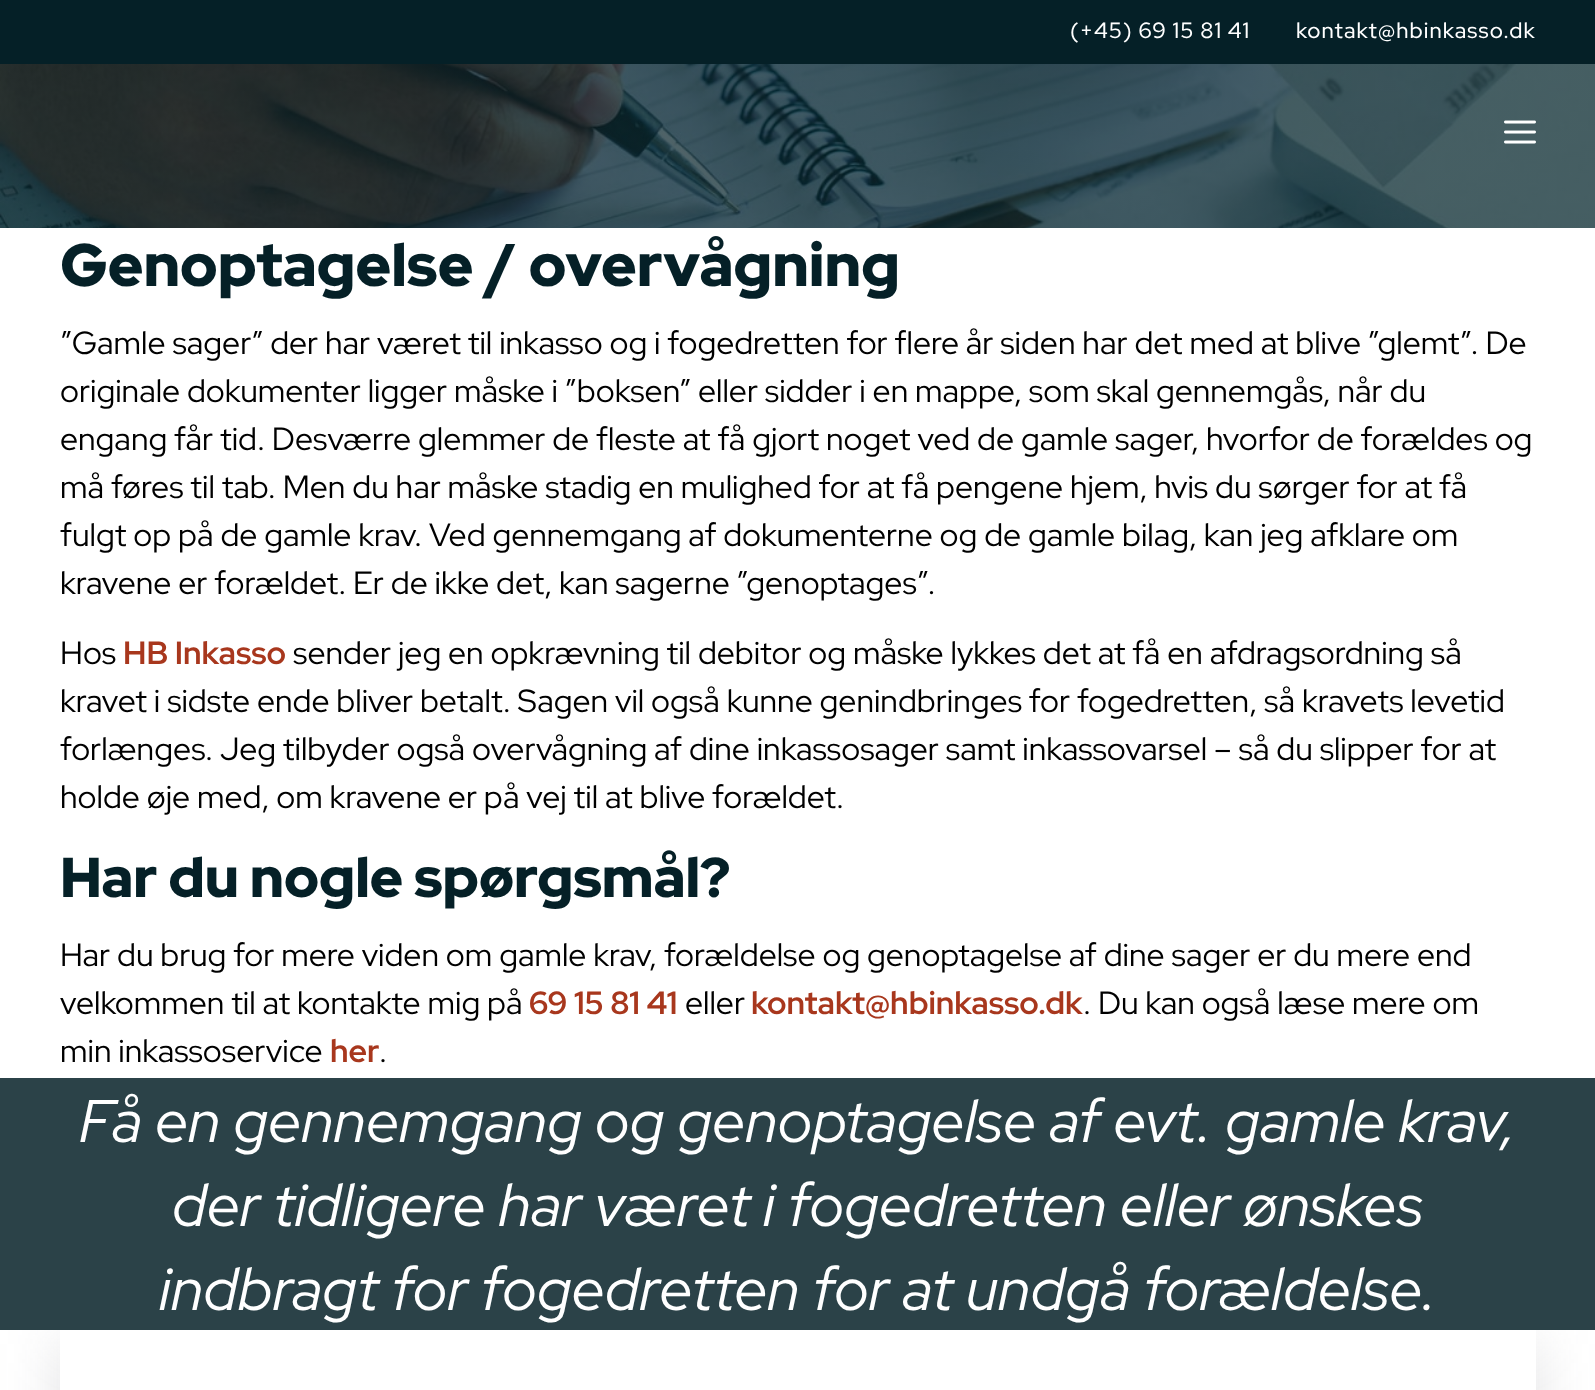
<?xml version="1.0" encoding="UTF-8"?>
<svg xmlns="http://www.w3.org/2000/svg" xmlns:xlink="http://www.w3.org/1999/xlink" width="1595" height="1390">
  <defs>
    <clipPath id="clip1"><rect x="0" y="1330" width="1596" height="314" /></clipPath>
    <clipPath id="clip2"><path d="M 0 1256 h 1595 v 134 h -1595 z m 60 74 h 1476 v 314 h -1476 z" clip-rule="evenodd" /></clipPath>
  </defs>
  <rect width="100%" height="100%" fill="#ffffff" />
  <rect width="1595" height="64" fill="#052027" />
  <image x="0" y="64" width="1595" height="164" xlink:href="image2.png" />
  <image x="1504" y="120" width="32" height="24" xlink:href="image1.png" />
  <rect y="1078" width="1595" height="252" fill="#2b4248" />
  <g clip-path="url(#clip1)">
    <g clip-path="url(#clip2)">
      <rect x="60" y="1344" width="1476" height="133" fill="#64646f" fill-opacity="0.2" filter="blur(29px)" />
    </g>
  </g>
  <text x="1070" y="38" style="font-family: Red Hat Display; font-size: 22px; font-weight: 500; letter-spacing: 1.1px; fill: #ffffff">(+45) 69 15 81 41</text>
  <text x="1296" y="38" style="font-family: Red Hat Display; font-size: 22px; font-weight: 500; letter-spacing: 1.1px; fill: #ffffff">kontakt@hbinkasso.dk</text>
  <text x="60" y="286" style="font-family: Red Hat Display; font-size: 60px; font-weight: 900; fill: #052027">Genoptagelse / overvågning</text>
  <text x="60" y="354" style="font-family: Red Hat Display; font-size: 32px; fill: #000000">”Gamle sager” der har været til inkasso og i fogedretten for flere år siden har det med at blive ”glemt”. De</text>
  <text x="60" y="402" style="font-family: Red Hat Display; font-size: 32px; fill: #000000">originale dokumenter ligger måske i ”boksen” eller sidder i en mappe, som skal gennemgås, når du</text>
  <text x="60" y="450" style="font-family: Red Hat Display; font-size: 32px; fill: #000000">engang får tid. Desværre glemmer de fleste at få gjort noget ved de gamle sager, hvorfor de forældes og</text>
  <text x="60" y="498" style="font-family: Red Hat Display; font-size: 32px; fill: #000000">må føres til tab. Men du har måske stadig en mulighed for at få pengene hjem, hvis du sørger for at få</text>
  <text x="60" y="546" style="font-family: Red Hat Display; font-size: 32px; fill: #000000">fulgt op på de gamle krav. Ved gennemgang af dokumenterne og de gamle bilag, kan jeg afklare om</text>
  <text x="60" y="594" style="font-family: Red Hat Display; font-size: 32px; fill: #000000">kravene er forældet. Er de ikke det, kan sagerne ”genoptages”.</text>
  <text x="60" y="664" style="font-family: Red Hat Display; font-size: 32px; fill: #000000">Hos</text>
  <text x="123" y="664" style="font-family: Red Hat Display; font-size: 32px; font-weight: bold; fill: #a8371d">HB Inkasso</text>
  <text x="293" y="664" style="font-family: Red Hat Display; font-size: 32px; fill: #000000">sender jeg en opkrævning til debitor og måske lykkes det at få en afdragsordning så</text>
  <text x="60" y="712" style="font-family: Red Hat Display; font-size: 32px; fill: #000000">kravet i sidste ende bliver betalt. Sagen vil også kunne genindbringes for fogedretten, så kravets levetid</text>
  <text x="60" y="760" style="font-family: Red Hat Display; font-size: 32px; fill: #000000">forlænges. Jeg tilbyder også overvågning af dine inkassosager samt inkassovarsel – så du slipper for at</text>
  <text x="60" y="808" style="font-family: Red Hat Display; font-size: 32px; fill: #000000">holde øje med, om kravene er på vej til at blive forældet.</text>
  <text x="60" y="897" style="font-family: Red Hat Display; font-size: 56px; font-weight: 900; fill: #052027">Har du nogle spørgsmål?</text>
  <text x="60" y="966" style="font-family: Red Hat Display; font-size: 32px; fill: #000000">Har du brug for mere viden om gamle krav, forældelse og genoptagelse af dine sager er du mere end</text>
  <text x="60" y="1014" style="font-family: Red Hat Display; font-size: 32px; fill: #000000">velkommen til at kontakte mig på</text>
  <text x="529" y="1014" style="font-family: Red Hat Display; font-size: 32px; font-weight: bold; fill: #a8371d">69 15 81 41</text>
  <text x="685" y="1014" style="font-family: Red Hat Display; font-size: 32px; fill: #000000">eller</text>
  <text x="751" y="1014" style="font-family: Red Hat Display; font-size: 32px; font-weight: bold; fill: #a8371d">kontakt@hbinkasso.dk</text>
  <text x="1083" y="1014" style="font-family: Red Hat Display; font-size: 32px; fill: #000000">. Du kan også læse mere om</text>
  <text x="60" y="1062" style="font-family: Red Hat Display; font-size: 32px; fill: #000000">min inkassoservice</text>
  <text x="330" y="1062" style="font-family: Red Hat Display; font-size: 32px; font-weight: bold; fill: #a8371d">her</text>
  <text x="379" y="1062" style="font-family: Red Hat Display; font-size: 32px; fill: #000000">.</text>
  <text x="79" y="1142" style="font-family: Red Hat Display; font-size: 60px; font-style: italic; fill: #ffffff">Få en gennemgang og genoptagelse af evt. gamle krav,</text>
  <text x="172" y="1226" style="font-family: Red Hat Display; font-size: 60px; font-style: italic; fill: #ffffff">der tidligere har været i fogedretten eller ønskes</text>
  <text x="159" y="1310" style="font-family: Red Hat Display; font-size: 60px; font-style: italic; fill: #ffffff">indbragt for fogedretten for at undgå forældelse.</text>
</svg>
